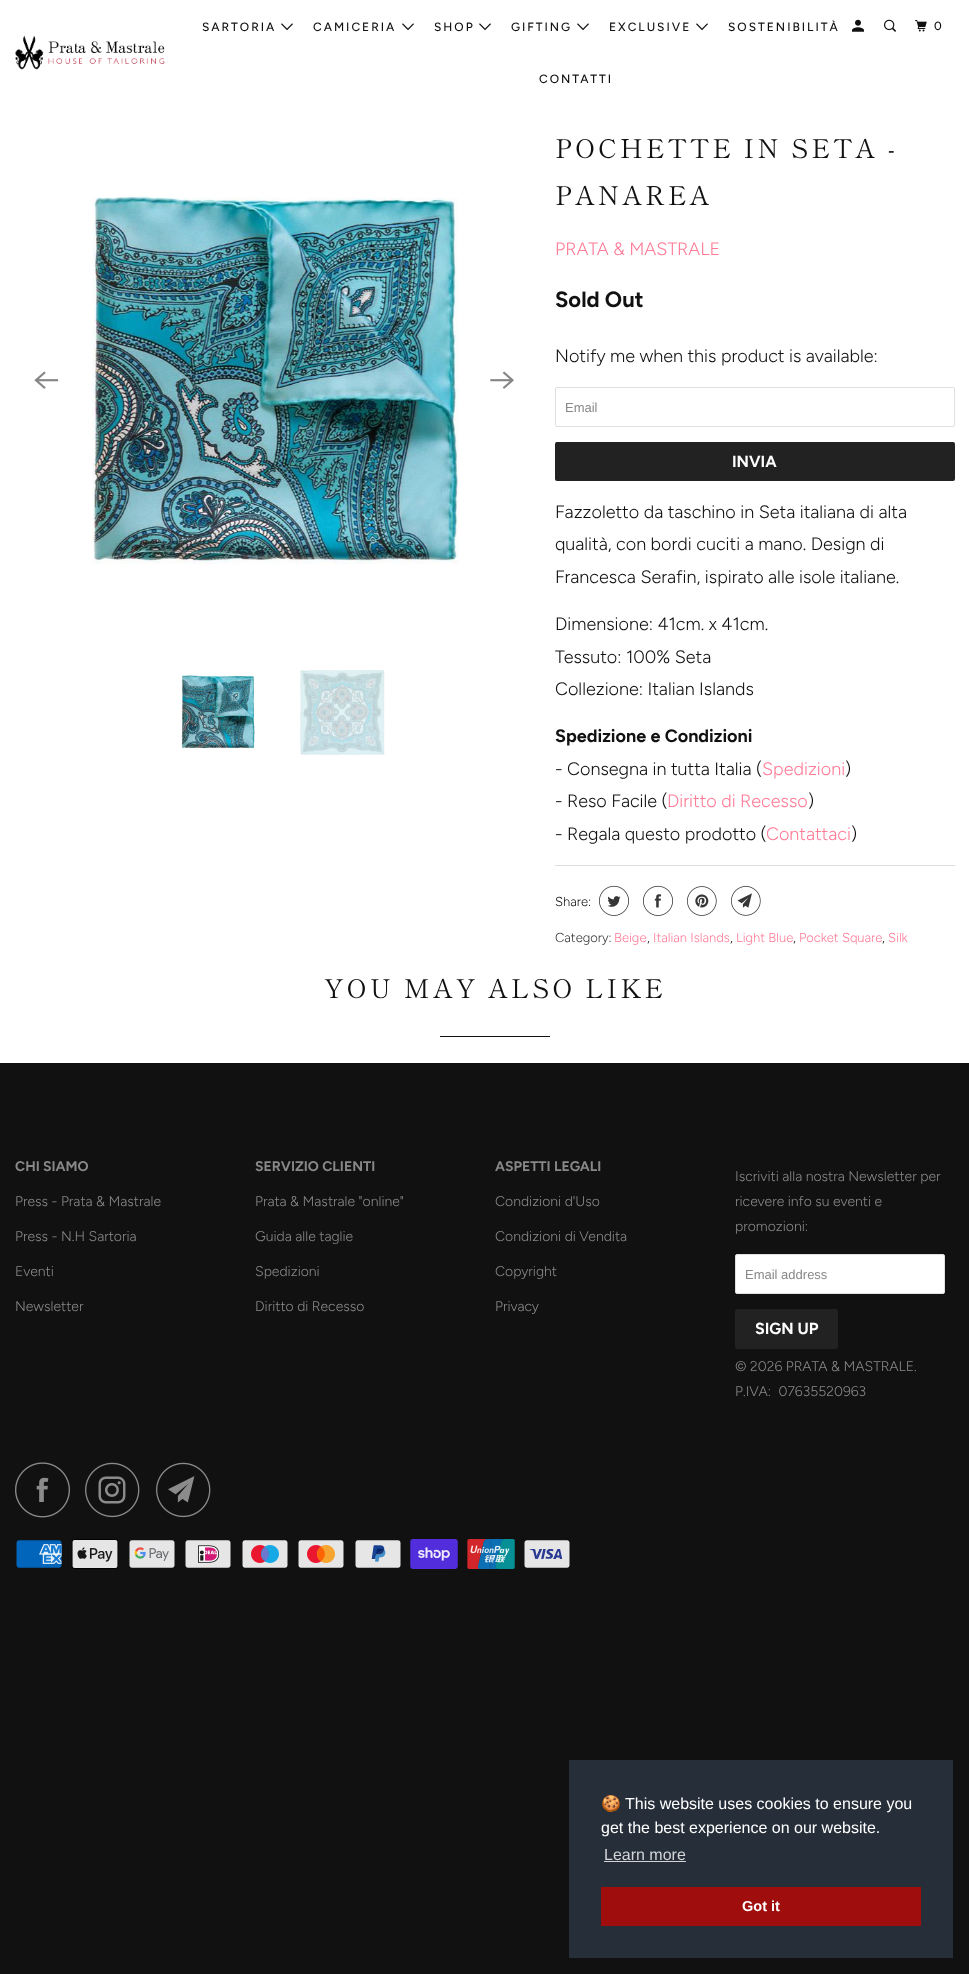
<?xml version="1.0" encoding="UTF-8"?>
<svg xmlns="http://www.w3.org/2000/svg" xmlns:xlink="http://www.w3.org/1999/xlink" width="969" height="1974">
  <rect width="100%" height="100%" fill="#111111" />
  <rect width="969" height="1063" fill="#ffffff" />
  <image x="15" y="35" width="150" height="35" xlink:href="image1.png" />
  <image x="281" y="23" width="12" height="8" xlink:href="image2.png" />
  <image x="402" y="23" width="12" height="8" xlink:href="image2.png" />
  <image x="479" y="23" width="12" height="8" xlink:href="image2.png" />
  <image x="577" y="23" width="12" height="8" xlink:href="image2.png" />
  <image x="696" y="23" width="12" height="8" xlink:href="image2.png" />
  <image x="852" y="19" width="12" height="13" xlink:href="image3.png" />
  <image x="884" y="19" width="12" height="13" xlink:href="image4.png" />
  <image x="915" y="20" width="12" height="12" xlink:href="image5.png" />
  <image x="34" y="371" width="25" height="18" xlink:href="image6.png" />
  <image x="92" y="195" width="367" height="369" xlink:href="image7.png" />
  <image x="490" y="371" width="24" height="18" xlink:href="image8.png" />
  <image x="180" y="675" width="75" height="74" xlink:href="image9.png" />
  <image x="300" y="670" width="85" height="85" xlink:href="image10.png" />
  <rect x="555.5" y="387.5" width="399" height="39" rx="1.5" fill="none" stroke="#dfdfdf" />
  <rect x="555" y="442" width="400" height="39" rx="2" fill="#222222" />
  <rect x="555" y="865" width="400" height="1" fill="#dddddd" />
  <image x="599" y="885" width="30" height="31" xlink:href="image11.png" />
  <image x="643" y="885" width="30" height="31" xlink:href="image12.png" />
  <image x="687" y="886" width="30" height="30" xlink:href="image13.png" />
  <image x="731" y="886" width="30" height="30" xlink:href="image14.png" />
  <rect x="440" y="1036" width="110" height="1" fill="#111111" />
  <rect x="735.5" y="1254.5" width="209" height="39" rx="1.5" fill="#ffffff" stroke="#dfdfdf" />
  <rect x="735" y="1309" width="103" height="40" rx="2" fill="#222222" />
  <image x="15" y="1462" width="55" height="56" xlink:href="image15.png" />
  <image x="85" y="1462" width="55" height="56" xlink:href="image16.png" />
  <image x="156" y="1462" width="55" height="56" xlink:href="image17.png" />
  <image x="16" y="1540" width="46" height="28" xlink:href="image18.png" />
  <image x="71" y="1539" width="48" height="30" xlink:href="image19.png" />
  <image x="129" y="1540" width="46" height="28" xlink:href="image20.png" />
  <image x="185" y="1540" width="46" height="28" xlink:href="image21.png" />
  <image x="242" y="1540" width="46" height="28" xlink:href="image22.png" />
  <image x="298" y="1540" width="46" height="28" xlink:href="image23.png" />
  <image x="355" y="1540" width="46" height="28" xlink:href="image24.png" />
  <image x="410" y="1539" width="48" height="30" xlink:href="image25.png" />
  <image x="467" y="1539" width="48" height="30" xlink:href="image26.png" />
  <image x="524" y="1540" width="46" height="28" xlink:href="image27.png" />
  <rect x="569" y="1760" width="384" height="198" fill="#252e39" />
  <rect x="604" y="1861" width="82" height="1" fill="#d3d5d7" />
  <rect x="601" y="1887" width="320" height="39" fill="#a00d0d" />
  <text x="202" y="31" style="font-family: Figtree; font-size: 12px; font-weight: 500; letter-spacing: 2px; fill: #111111">SARTORIA</text>
  <text x="313" y="31" style="font-family: Figtree; font-size: 12px; font-weight: 500; letter-spacing: 2px; fill: #111111">CAMICERIA</text>
  <text x="434" y="31" style="font-family: Figtree; font-size: 12px; font-weight: 500; letter-spacing: 2px; fill: #111111">SHOP</text>
  <text x="511" y="31" style="font-family: Figtree; font-size: 12px; font-weight: 500; letter-spacing: 2px; fill: #111111">GIFTING</text>
  <text x="609" y="31" style="font-family: Figtree; font-size: 12px; font-weight: 500; letter-spacing: 2px; fill: #111111">EXCLUSIVE</text>
  <text x="728" y="31" style="font-family: Figtree; font-size: 12px; font-weight: 500; letter-spacing: 2px; fill: #111111">SOSTENIBILITÀ</text>
  <text x="539" y="83" style="font-family: Figtree; font-size: 12px; font-weight: 500; letter-spacing: 2px; fill: #111111">CONTATTI</text>
  <text x="934" y="30" style="font-family: Figtree; font-size: 12px; font-weight: 500; letter-spacing: 2px; fill: #111111">0</text>
  <text x="555" y="158" style="font-family: Shippori Mincho; font-size: 26px; letter-spacing: 3px; fill: #111111">POCHETTE IN SETA -</text>
  <text x="555" y="205" style="font-family: Shippori Mincho; font-size: 26px; letter-spacing: 3px; fill: #111111">PANAREA</text>
  <text x="555" y="255" style="font-family: Figtree; font-size: 18px; font-weight: 300; fill: #ff7c97">PRATA &amp; MASTRALE</text>
  <text x="555" y="307" style="font-family: Figtree; font-size: 22px; font-weight: bold; fill: #111111">Sold Out</text>
  <text x="555" y="362" style="font-family: Figtree; font-size: 18px; font-weight: 300; fill: #111111">Notify me when this product is available:</text>
  <text x="565" y="412" style="font-family: Liberation Sans; font-size: 13px; fill: #888888">Email</text>
  <text x="732" y="467" style="font-family: Figtree; font-size: 16px; font-weight: bold; fill: #ffffff">INVIA</text>
  <text x="555" y="518" style="font-family: Figtree; font-size: 18px; font-weight: 300; fill: #111111">Fazzoletto da taschino in Seta italiana di alta</text>
  <text x="555" y="550" style="font-family: Figtree; font-size: 18px; font-weight: 300; fill: #111111">qualità, con bordi cuciti a mano. Design di</text>
  <text x="555" y="583" style="font-family: Figtree; font-size: 18px; font-weight: 300; fill: #111111">Francesca Serafin, ispirato alle isole italiane.</text>
  <text x="555" y="630" style="font-family: Figtree; font-size: 18px; font-weight: 300; fill: #111111">Dimensione: 41cm. x 41cm.</text>
  <text x="555" y="663" style="font-family: Figtree; font-size: 18px; font-weight: 300; fill: #111111">Tessuto: 100% Seta</text>
  <text x="555" y="695" style="font-family: Figtree; font-size: 18px; font-weight: 300; fill: #111111">Collezione: Italian Islands</text>
  <text x="555" y="742" style="font-family: Figtree; font-size: 18px; font-weight: bold; fill: #111111">Spedizione e Condizioni</text>
  <text x="555" y="775" style="font-family: Figtree; font-size: 18px; font-weight: 300; fill: #111111">- Consegna in tutta Italia (</text>
  <text x="762" y="775" style="font-family: Figtree; font-size: 18px; font-weight: 300; fill: #ff7c97">Spedizioni</text>
  <text x="845" y="775" style="font-family: Figtree; font-size: 18px; font-weight: 300; fill: #111111">)</text>
  <text x="555" y="807" style="font-family: Figtree; font-size: 18px; font-weight: 300; fill: #111111">- Reso Facile (</text>
  <text x="667" y="807" style="font-family: Figtree; font-size: 18px; font-weight: 300; fill: #ff7c97">Diritto di Recesso</text>
  <text x="808" y="807" style="font-family: Figtree; font-size: 18px; font-weight: 300; fill: #111111">)</text>
  <text x="555" y="840" style="font-family: Figtree; font-size: 18px; font-weight: 300; fill: #111111">- Regala questo prodotto (</text>
  <text x="766" y="840" style="font-family: Figtree; font-size: 18px; font-weight: 300; fill: #ff7c97">Contattaci</text>
  <text x="851" y="840" style="font-family: Figtree; font-size: 18px; font-weight: 300; fill: #111111">)</text>
  <text x="555" y="906" style="font-family: Figtree; font-size: 13px; font-weight: 300; fill: #111111">Share:</text>
  <text x="555" y="942" style="font-family: Figtree; font-size: 13px; font-weight: 300; fill: #363636">Category:</text>
  <text x="614" y="942" style="font-family: Figtree; font-size: 13px; font-weight: 300; fill: #ff7c97">Beige</text>
  <text x="647" y="942" style="font-family: Figtree; font-size: 13px; font-weight: 300; fill: #111111">,</text>
  <text x="653" y="942" style="font-family: Figtree; font-size: 13px; font-weight: 300; fill: #ff7c97">Italian Islands</text>
  <text x="730" y="942" style="font-family: Figtree; font-size: 13px; font-weight: 300; fill: #111111">,</text>
  <text x="736" y="942" style="font-family: Figtree; font-size: 13px; font-weight: 300; fill: #ff7c97">Light Blue</text>
  <text x="793" y="942" style="font-family: Figtree; font-size: 13px; font-weight: 300; fill: #111111">,</text>
  <text x="799" y="942" style="font-family: Figtree; font-size: 13px; font-weight: 300; fill: #ff7c97">Pocket Square</text>
  <text x="882" y="942" style="font-family: Figtree; font-size: 13px; font-weight: 300; fill: #111111">,</text>
  <text x="888" y="942" style="font-family: Figtree; font-size: 13px; font-weight: 300; fill: #ff7c97">Silk</text>
  <text x="324" y="998" style="font-family: Shippori Mincho; font-size: 26px; letter-spacing: 3px; fill: #111111">YOU MAY ALSO LIKE</text>
  <text x="15" y="1171" style="font-family: Figtree; font-size: 14px; font-weight: bold; fill: #888888">CHI SIAMO</text>
  <text x="15" y="1206" style="font-family: Figtree; font-size: 14px; font-weight: 300; fill: #888888">Press - Prata &amp; Mastrale</text>
  <text x="15" y="1241" style="font-family: Figtree; font-size: 14px; font-weight: 300; fill: #888888">Press - N.H Sartoria</text>
  <text x="15" y="1276" style="font-family: Figtree; font-size: 14px; font-weight: 300; fill: #888888">Eventi</text>
  <text x="15" y="1311" style="font-family: Figtree; font-size: 14px; font-weight: 300; fill: #888888">Newsletter</text>
  <text x="255" y="1171" style="font-family: Figtree; font-size: 14px; font-weight: bold; fill: #888888">SERVIZIO CLIENTI</text>
  <text x="255" y="1206" style="font-family: Figtree; font-size: 14px; font-weight: 300; fill: #888888">Prata &amp; Mastrale "online"</text>
  <text x="255" y="1241" style="font-family: Figtree; font-size: 14px; font-weight: 300; fill: #888888">Guida alle taglie</text>
  <text x="255" y="1276" style="font-family: Figtree; font-size: 14px; font-weight: 300; fill: #888888">Spedizioni</text>
  <text x="255" y="1311" style="font-family: Figtree; font-size: 14px; font-weight: 300; fill: #888888">Diritto di Recesso</text>
  <text x="495" y="1171" style="font-family: Figtree; font-size: 14px; font-weight: bold; fill: #888888">ASPETTI LEGALI</text>
  <text x="495" y="1206" style="font-family: Figtree; font-size: 14px; font-weight: 300; fill: #888888">Condizioni d'Uso</text>
  <text x="495" y="1241" style="font-family: Figtree; font-size: 14px; font-weight: 300; fill: #888888">Condizioni di Vendita</text>
  <text x="495" y="1276" style="font-family: Figtree; font-size: 14px; font-weight: 300; fill: #888888">Copyright</text>
  <text x="495" y="1311" style="font-family: Figtree; font-size: 14px; font-weight: 300; fill: #888888">Privacy</text>
  <text x="735" y="1181" style="font-family: Figtree; font-size: 14px; font-weight: 300; fill: #888888">Iscriviti alla nostra Newsletter per</text>
  <text x="735" y="1206" style="font-family: Figtree; font-size: 14px; font-weight: 300; fill: #888888">ricevere info su eventi e</text>
  <text x="735" y="1231" style="font-family: Figtree; font-size: 14px; font-weight: 300; fill: #888888">promozioni:</text>
  <text x="745" y="1279" style="font-family: Liberation Sans; font-size: 13px; fill: #888888">Email address</text>
  <text x="755" y="1334" style="font-family: Figtree; font-size: 16px; font-weight: bold; fill: #ffffff">SIGN UP</text>
  <text x="735" y="1371" style="font-family: Figtree; font-size: 14px; font-weight: 300; fill: #888888">© 2026 PRATA &amp; MASTRALE.</text>
  <text x="735" y="1396" word-spacing="4" style="font-family: Figtree; font-size: 14px; font-weight: 300; fill: #888888">P.IVA: 07635520963</text>
  <text x="601" y="1809" style="font-family: Noto Color Emoji; font-size: 16px; fill: #ffffff">🍪</text>
  <text x="625" y="1809" style="font-family: Liberation Sans; font-size: 16px; fill: #ffffff">This website uses cookies to ensure you</text>
  <text x="601" y="1833" style="font-family: Liberation Sans; font-size: 16px; fill: #ffffff">get the best experience on our website.</text>
  <text x="604" y="1860" style="font-family: Liberation Sans; font-size: 16px; fill: #d3d5d7">Learn more</text>
  <text x="742" y="1911" style="font-family: Liberation Sans; font-size: 14.5px; font-weight: bold; fill: #ffffff">Got it</text>
</svg>
